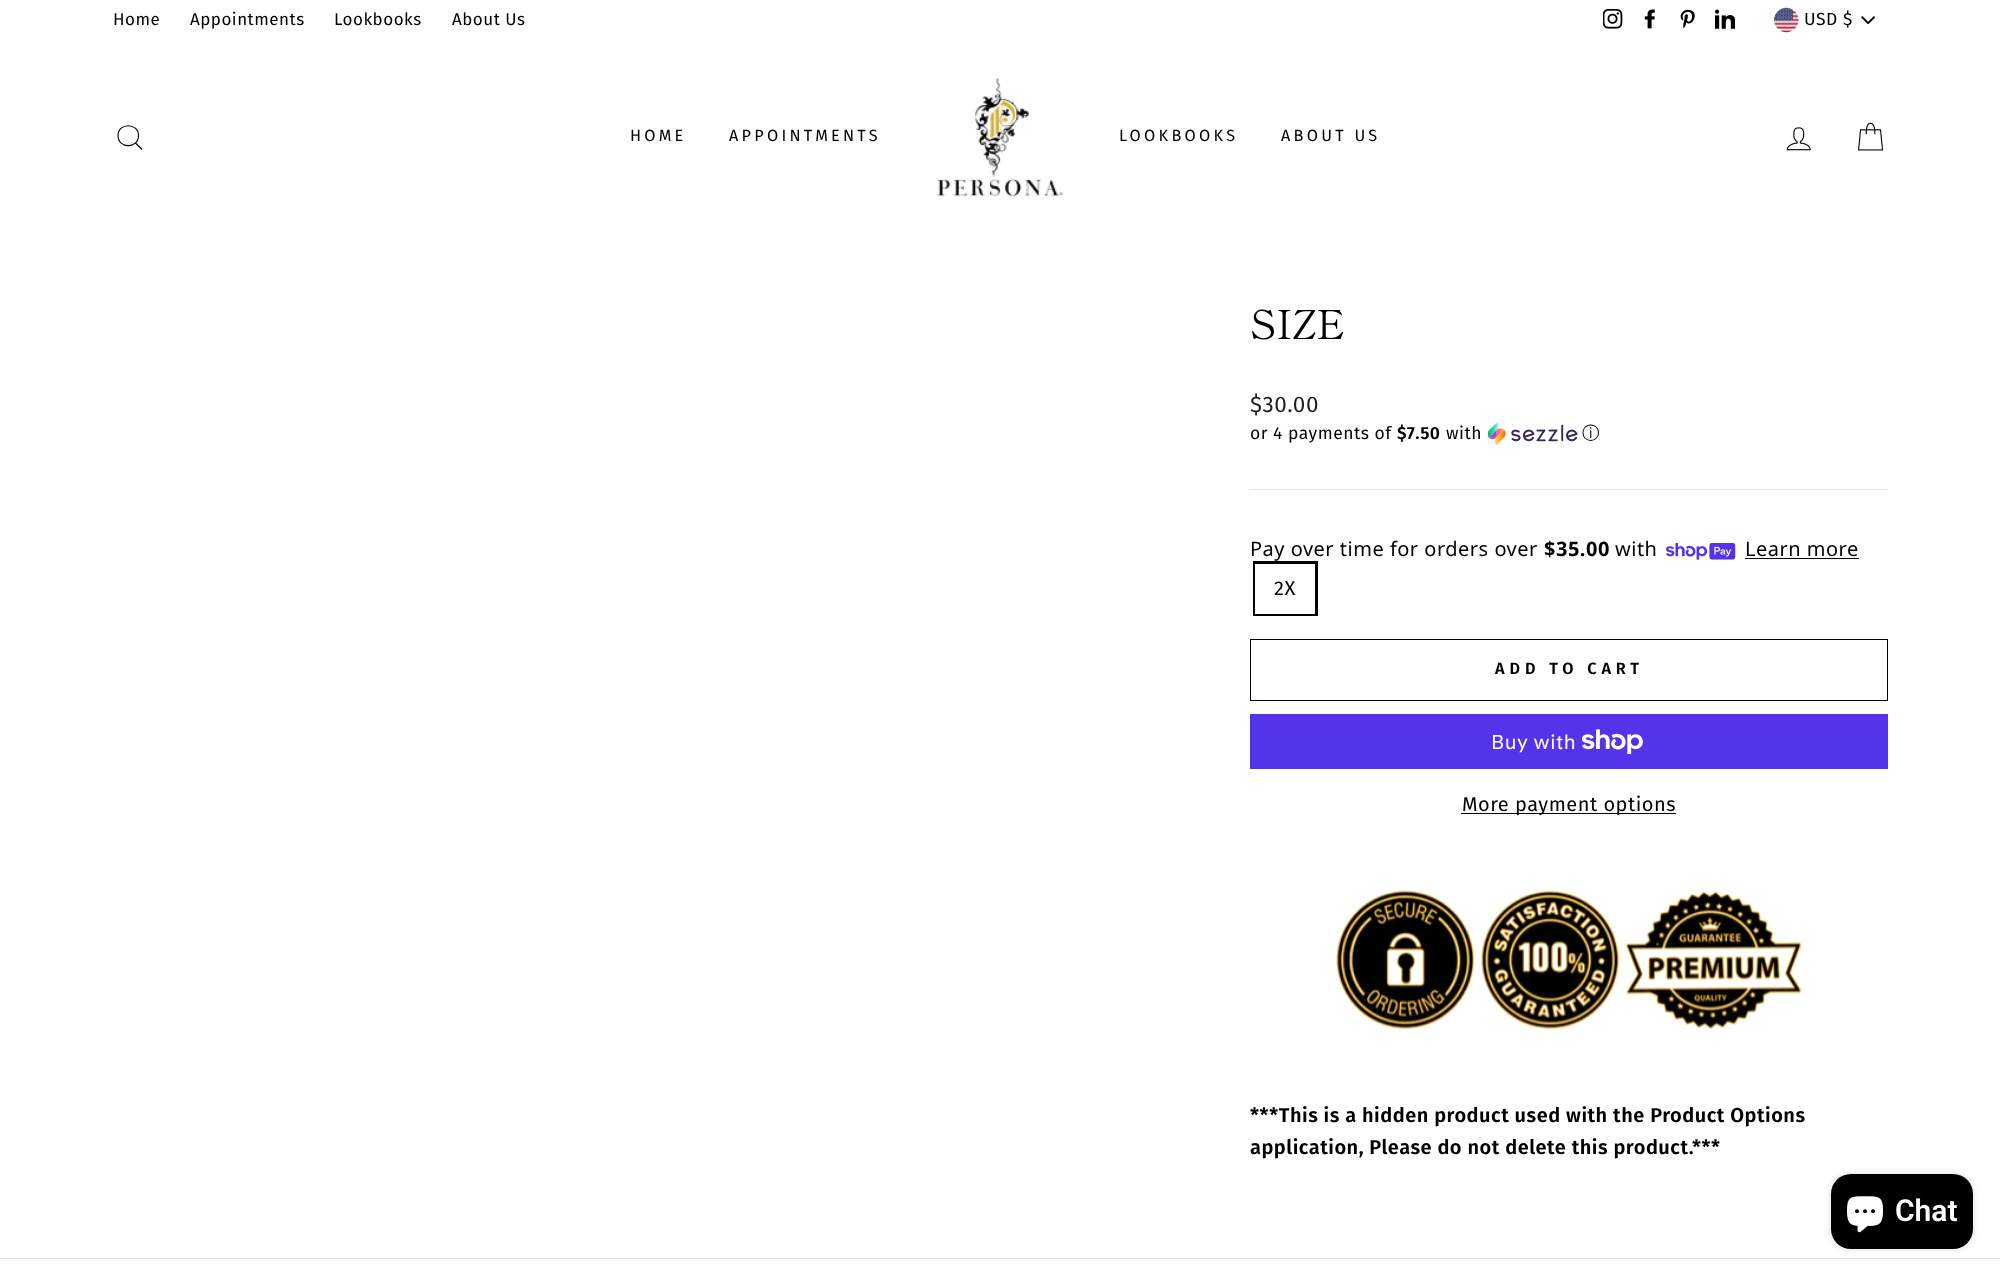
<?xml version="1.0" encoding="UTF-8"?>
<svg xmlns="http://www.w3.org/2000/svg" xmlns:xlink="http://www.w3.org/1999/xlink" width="2000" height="1274">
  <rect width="100%" height="100%" fill="#ffffff" />
  <image x="1603" y="9" width="20" height="20" xlink:href="image1.png" />
  <image x="1644" y="9" width="11" height="20" xlink:href="image2.png" />
  <image x="1680" y="9" width="15" height="20" xlink:href="image3.png" />
  <image x="1715" y="9" width="20" height="20" xlink:href="image4.png" />
  <image x="1861" y="16" width="14" height="8" xlink:href="image5.png" />
  <image x="1773" y="7" width="26" height="26" xlink:href="image6.png" />
  <rect y="41" width="2000" height="193" fill="#000000" fill-opacity="0.2" filter="blur(0.5px)" />
  <rect y="41" width="2000" height="193" fill="#ffffff" />
  <path d="M 138.5 135.5 c 0 13.5 -20.5 13.5 -20.5 0 c 0 -13 20.5 -13 20.5 0 z m 3.5 14 l -6.5 -6.5" fill="none" stroke="#000000" stroke-width="1.1" />
  <image x="937" y="78" width="126" height="119" xlink:href="image7.png" />
  <image x="1786" y="127" width="25" height="24" xlink:href="image8.png" />
  <image x="1858" y="122" width="26" height="29" xlink:href="image9.png" />
  <image x="1488" y="423" width="90" height="22" xlink:href="image10.png" />
  <rect x="1250" y="489" width="638" height="1" fill="#e8e8e1" />
  <image x="1666" y="543" width="70" height="17" xlink:href="image11.png" />
  <rect x="1745" y="558" width="114" height="1" fill="#000000" />
  <rect x="1254.5" y="562.5" width="62" height="52" fill="none" stroke="#000000" stroke-width="3" />
  <rect x="1255" y="564" width="60" height="50" fill="#ffffff" />
  <rect x="1250.5" y="639.5" width="637" height="61" fill="none" stroke="#000000" />
  <rect x="1250" y="714" width="638" height="55" fill="#5433eb" />
  <image x="1581" y="729" width="62" height="25" xlink:href="image12.png" />
  <rect x="1461" y="813" width="215" height="1" fill="#000000" />
  <image x="1336" y="890" width="466" height="140" xlink:href="image13.png" />
  <rect y="1258" width="2000" height="1" fill="#e8e8e1" />
  <rect x="1831" y="1174" width="142" height="75" rx="20" fill="#000000" fill-opacity="0.15" filter="blur(3px)" />
  <rect x="1831" y="1174" width="142" height="75" rx="20" fill="#000000" />
  <image x="1847" y="1196" width="36" height="37" xlink:href="image14.png" />
  <text x="113" y="25" style="font-family: Fira Sans; font-size: 17px; letter-spacing: 0.5px; fill: #000000">Home</text>
  <text x="190" y="25" style="font-family: Fira Sans; font-size: 17px; letter-spacing: 0.5px; fill: #000000">Appointments</text>
  <text x="334" y="25" style="font-family: Fira Sans; font-size: 17px; letter-spacing: 0.5px; fill: #000000">Lookbooks</text>
  <text x="452" y="25" style="font-family: Fira Sans; font-size: 17px; letter-spacing: 0.5px; fill: #000000">About Us</text>
  <text x="1804" y="25" style="font-family: Fira Sans; font-size: 17.5px; letter-spacing: 0.5px; fill: #000000">USD $</text>
  <text x="630" y="141" style="font-family: Fira Sans; font-size: 16.25px; letter-spacing: 3.25px; fill: #000000">HOME</text>
  <text x="729" y="141" style="font-family: Fira Sans; font-size: 16.25px; letter-spacing: 3.25px; fill: #000000">APPOINTMENTS</text>
  <text x="1119" y="141" style="font-family: Fira Sans; font-size: 16.25px; letter-spacing: 3.25px; fill: #000000">LOOKBOOKS</text>
  <text x="1281" y="141" style="font-family: Fira Sans; font-size: 16.25px; letter-spacing: 3.25px; fill: #000000">ABOUT US</text>
  <text x="1250" y="339" style="font-family: Shippori Mincho; font-size: 40px; fill: #000000">SIZE</text>
  <text x="1250" y="412" style="font-family: Fira Sans; font-size: 22.5px; letter-spacing: 0.5px; fill: #1c1d1d">$30.00</text>
  <text x="1250" y="439" style="font-family: Fira Sans; font-size: 17.5px; letter-spacing: 0.5px; fill: #000000">or 4 payments of</text>
  <text x="1397" y="439" style="font-family: Fira Sans; font-size: 17.5px; font-weight: 600; letter-spacing: 0.5px; fill: #000000">$7.50</text>
  <text x="1446" y="439" style="font-family: Fira Sans; font-size: 17.5px; letter-spacing: 0.5px; fill: #000000">with</text>
  <text x="1582" y="439" style="font-family: WenQuanYi Zen Hei; font-size: 17.5px; font-weight: 500; letter-spacing: 0.5px; fill: #000000">ⓘ</text>
  <text x="1250" y="556" style="font-family: Noto Sans; font-size: 20px; letter-spacing: 0.5px; fill: #000000">Pay over time for orders over</text>
  <text x="1544" y="556" style="font-family: Noto Sans; font-size: 20px; font-weight: bold; letter-spacing: 0.5px; fill: #000000">$35.00</text>
  <text x="1615" y="556" style="font-family: Noto Sans; font-size: 20px; letter-spacing: 0.5px; fill: #000000">with</text>
  <text x="1745" y="556" style="font-family: Noto Sans; font-size: 20px; letter-spacing: 0.5px; fill: #000000">Learn more</text>
  <text x="1274" y="595" style="font-family: Fira Sans; font-size: 20px; letter-spacing: 0.5px; fill: #000000">2X</text>
  <text x="1495" y="674" style="font-family: Fira Sans; font-size: 16.25px; font-weight: 600; letter-spacing: 4.9px; fill: #000000">ADD TO CART</text>
  <text x="1491" y="749" style="font-family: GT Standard; font-size: 20px; letter-spacing: 0.5px; fill: #ffffff">Buy with</text>
  <text x="1462" y="811" style="font-family: Fira Sans; font-size: 20px; letter-spacing: 0.5px; fill: #000000">More payment options</text>
  <text x="1250" y="1122" style="font-family: Fira Sans; font-size: 20px; font-weight: 600; letter-spacing: 0.5px; fill: #000000">***This is a hidden product used with the Product Options</text>
  <text x="1250" y="1154" style="font-family: Fira Sans; font-size: 20px; font-weight: 600; letter-spacing: 0.5px; fill: #000000">application, Please do not delete this product.***</text>
  <text x="1895" y="1221" style="font-family: Roboto; font-size: 30px; font-weight: 600; fill: #ffffff">Chat</text>
</svg>
